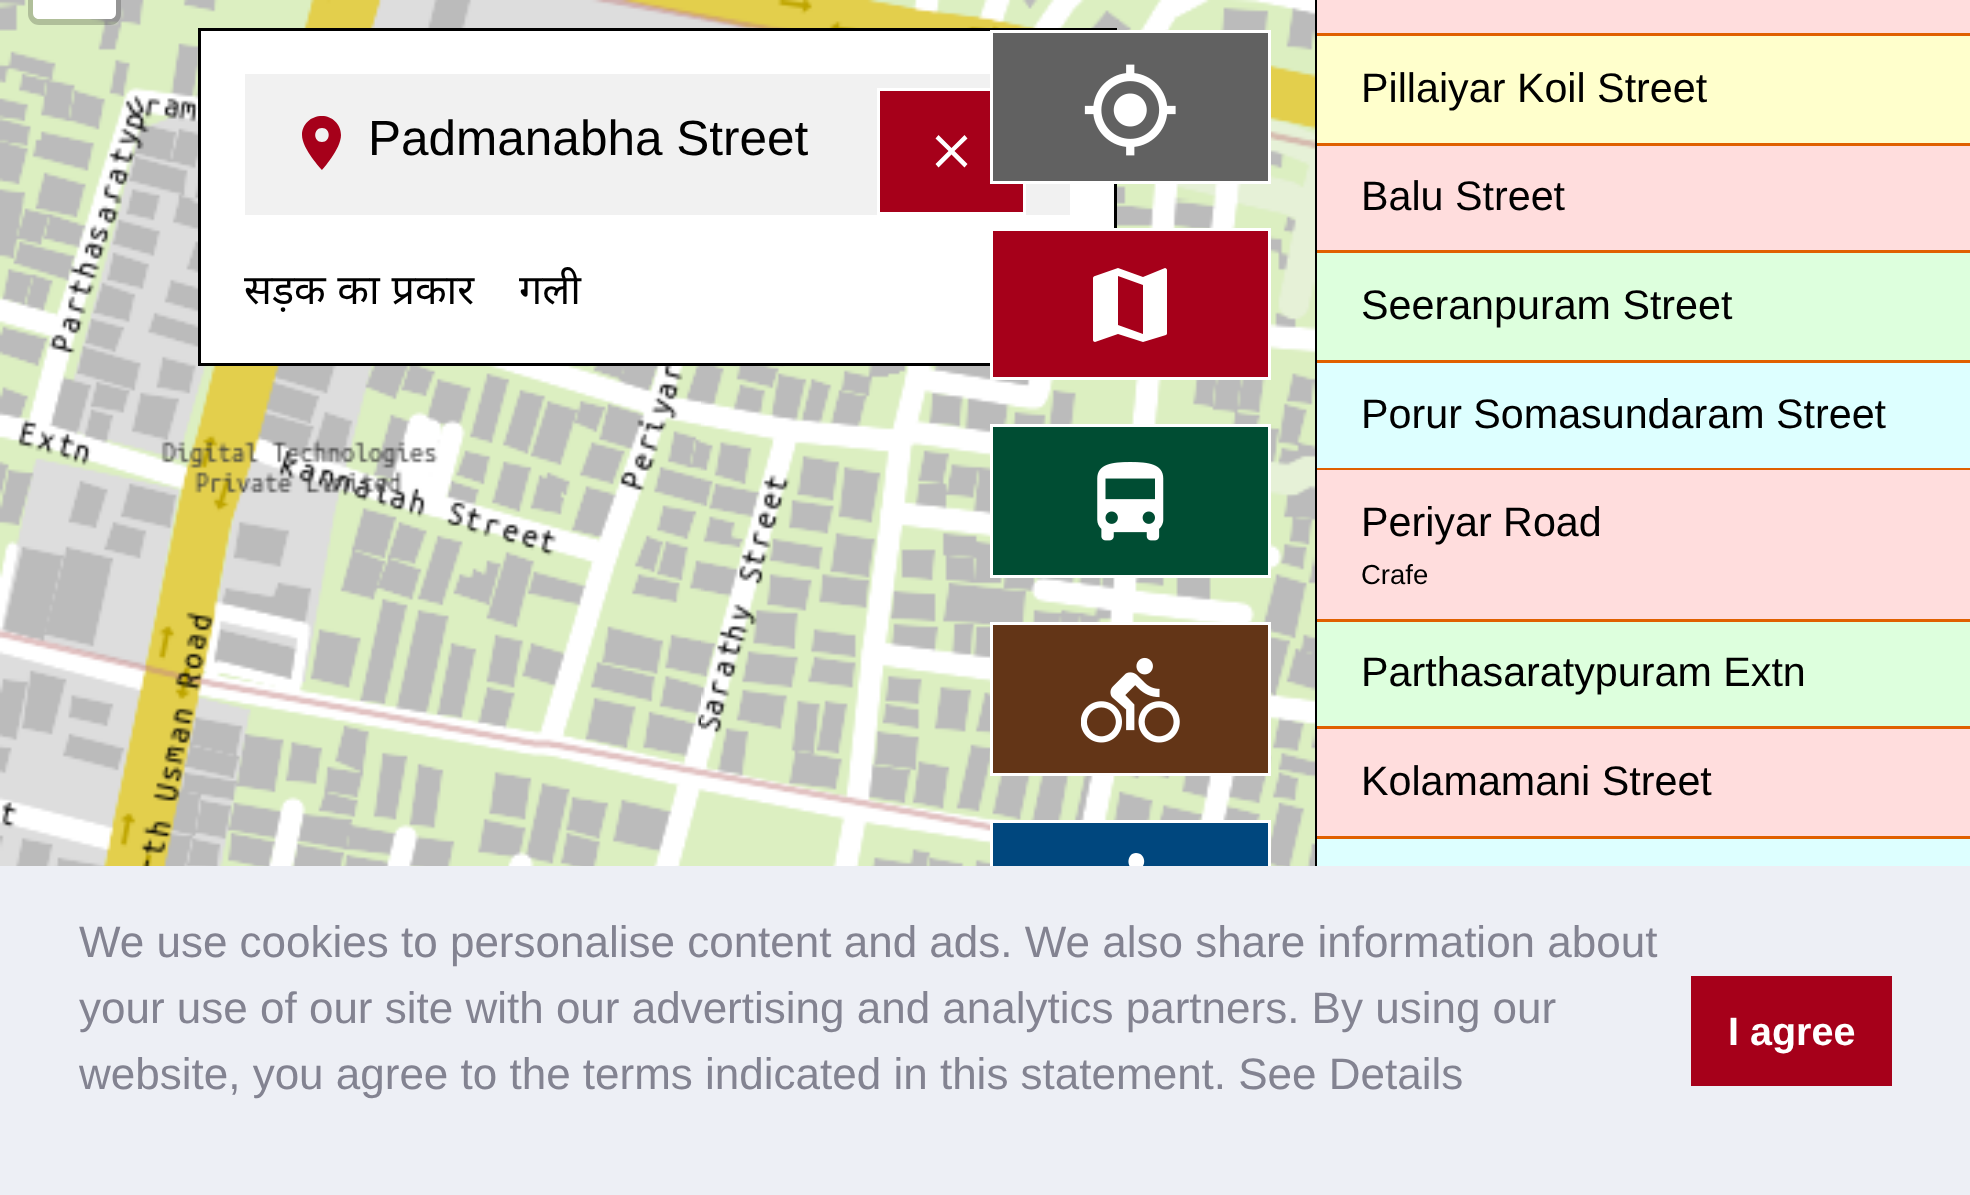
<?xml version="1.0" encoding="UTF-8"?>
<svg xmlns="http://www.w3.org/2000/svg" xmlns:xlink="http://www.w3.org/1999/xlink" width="1970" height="1195">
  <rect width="100%" height="100%" fill="#ffffff" />
  <image x="0" y="0" width="701" height="201" xlink:href="image1.png" />
  <rect x="31" y="-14" width="87" height="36" rx="8" fill="none" stroke="#000000" stroke-opacity="0.2" stroke-width="6" />
  <path d="M 33 -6 h 83 v 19 c 0 3.5 -2.5 6 -6 6 h -71 c -3.5 0 -6 -2.5 -6 -6 z" fill="#ffffff" />
  <image x="701" y="0" width="614" height="201" xlink:href="image2.png" />
  <image x="0" y="201" width="701" height="665" xlink:href="image3.png" />
  <image x="701" y="201" width="614" height="665" xlink:href="image4.png" />
  <rect x="199.5" y="29.5" width="916" height="335" fill="#ffffff" stroke="#000000" stroke-width="3" />
  <rect x="245" y="74" width="825" height="141" fill="#f1f1f1" />
  <path d="M 322 116 c -11 0 -20 8 -20 19 c 0 14 20 35 20 35 c 0 0 19 -21 19 -35 c 0 -11 -9 -19 -19 -19 z m 0 26 c -9 0 -9 -14 0 -14 c 9 0 9 14 0 14 z" fill="#a6001a" />
  <rect x="878.5" y="89.5" width="146" height="124" fill="#a6001a" stroke="#ffffff" stroke-width="3" />
  <path d="M 967.5 138.5 l -3 -3.5 l -13 13 l -13 -13 l -3 3.5 l 13 12.5 l -13 13 l 3 3.5 l 13 -13 l 13 13 l 3 -3.5 l -13 -13 z" fill="#ffffff" />
  <rect x="991.5" y="31.5" width="278" height="151" fill="#616161" stroke="#ffffff" stroke-width="3" />
  <image x="1084" y="64" width="92" height="92" xlink:href="image5.png" />
  <rect x="991.5" y="229.5" width="278" height="149" fill="#a6001a" stroke="#ffffff" stroke-width="3" />
  <path d="M 1165 268 l -22 9 l -25 -9 l -23 8 c -1 0 -2 1 -2 2 v 62 c 0 1 1 2 2 2 l 23 -8 l 25 8 l 23 -7 c 1 -1 1 -1 1 -2 v -63 c 0 -1 -1 -2 -2 -2 z m -22 66 l -25 -9 v -49 l 25 9 z" fill="#ffffff" />
  <rect x="991.5" y="425.5" width="278" height="151" fill="#004d33" stroke="#ffffff" stroke-width="3" />
  <image x="1097" y="462" width="67" height="79" xlink:href="image6.png" />
  <rect x="991.5" y="623.5" width="278" height="151" fill="#633517" stroke="#ffffff" stroke-width="3" />
  <image x="1081" y="657" width="99" height="86" xlink:href="image7.png" />
  <rect x="993" y="823" width="275" height="43" fill="#00477e" />
  <rect x="991.5" y="821.5" width="278" height="148" fill="none" stroke="#ffffff" stroke-width="3" />
  <path d="M 1136 870 c 11 0 11 -17 0 -17 c -10 0 -10 17 0 17 z m -15 14 l -11 58 h 8 l 8 -33 l 8 8 v 25 h 9 v -31 l -9 -8 l 2 -13 c 6 6 14 11 23 11 v -9 c -5 0 -11 -2 -15 -6 l -7 -11 c -5 -6 -12 -2 -17 0 l -14 6 v 20 h 8 v -14 l 7 -3" fill="#ffffff" />
  <rect x="1315" width="2" height="866" fill="#000000" />
  <rect x="1317" width="653" height="33" fill="#ffdddd" />
  <rect x="1317" y="33" width="653" height="3" fill="#e06000" />
  <rect x="1317" y="36" width="653" height="107" fill="#ffffcc" />
  <rect x="1317" y="143" width="653" height="3" fill="#e06000" />
  <rect x="1317" y="146" width="653" height="104" fill="#ffdddd" />
  <rect x="1317" y="250" width="653" height="3" fill="#e06000" />
  <rect x="1317" y="253" width="653" height="107" fill="#ddffdd" />
  <rect x="1317" y="360" width="653" height="3" fill="#e06000" />
  <rect x="1317" y="363" width="653" height="105" fill="#ddffff" />
  <rect x="1317" y="468" width="653" height="2" fill="#e06000" />
  <rect x="1317" y="470" width="653" height="149" fill="#ffdddd" />
  <rect x="1317" y="619" width="653" height="3" fill="#e06000" />
  <rect x="1317" y="622" width="653" height="104" fill="#ddffdd" />
  <rect x="1317" y="726" width="653" height="3" fill="#e06000" />
  <rect x="1317" y="729" width="653" height="107" fill="#ffdddd" />
  <rect x="1317" y="836" width="653" height="3" fill="#e06000" />
  <rect x="1317" y="839" width="653" height="27" fill="#ddffff" />
  <rect y="866" width="1970" height="329" fill="#edeff5" />
  <rect x="1691" y="976" width="201" height="110" fill="#a6001a" />
  <text x="368" y="155" style="font-family: Liberation Sans; font-size: 49.5px; fill: #000000">Padmanabha Street</text>
  <text x="244" y="304" word-spacing="1" style="font-family: Noto Sans; font-size: 41.25px; fill: #000000">सड़क का प्रकार</text>
  <text x="519" y="304" style="font-family: Noto Sans; font-size: 41.25px; fill: #000000">गली</text>
  <text x="1361" y="102" style="font-family: Liberation Sans; font-size: 41.25px; fill: #000000">Pillaiyar Koil Street</text>
  <text x="1361" y="210" style="font-family: Liberation Sans; font-size: 41.25px; fill: #000000">Balu Street</text>
  <text x="1361" y="319" style="font-family: Liberation Sans; font-size: 41.25px; fill: #000000">Seeranpuram Street</text>
  <text x="1361" y="428" style="font-family: Liberation Sans; font-size: 41.25px; fill: #000000">Porur Somasundaram Street</text>
  <text x="1361" y="536" style="font-family: Liberation Sans; font-size: 41.25px; fill: #000000">Periyar Road</text>
  <text x="1361" y="584" style="font-family: Liberation Sans; font-size: 27.5px; fill: #000000">Crafe</text>
  <text x="1361" y="686" style="font-family: Liberation Sans; font-size: 41.25px; fill: #000000">Parthasaratypuram Extn</text>
  <text x="1361" y="795" style="font-family: Liberation Sans; font-size: 41.25px; fill: #000000">Kolamamani Street</text>
  <text x="79" y="957" style="font-family: Liberation Sans; font-size: 44px; fill: #838391">We use cookies to personalise content and ads. We also share information about</text>
  <text x="79" y="1023" style="font-family: Liberation Sans; font-size: 44px; fill: #838391">your use of our site with our advertising and analytics partners. By using our</text>
  <text x="79" y="1089" style="font-family: Liberation Sans; font-size: 44px; fill: #838391">website, you agree to the terms indicated in this statement. See Details</text>
  <text x="1728" y="1045" style="font-family: Liberation Sans; font-size: 39.5px; font-weight: bold; fill: #ffffff">I agree</text>
</svg>
